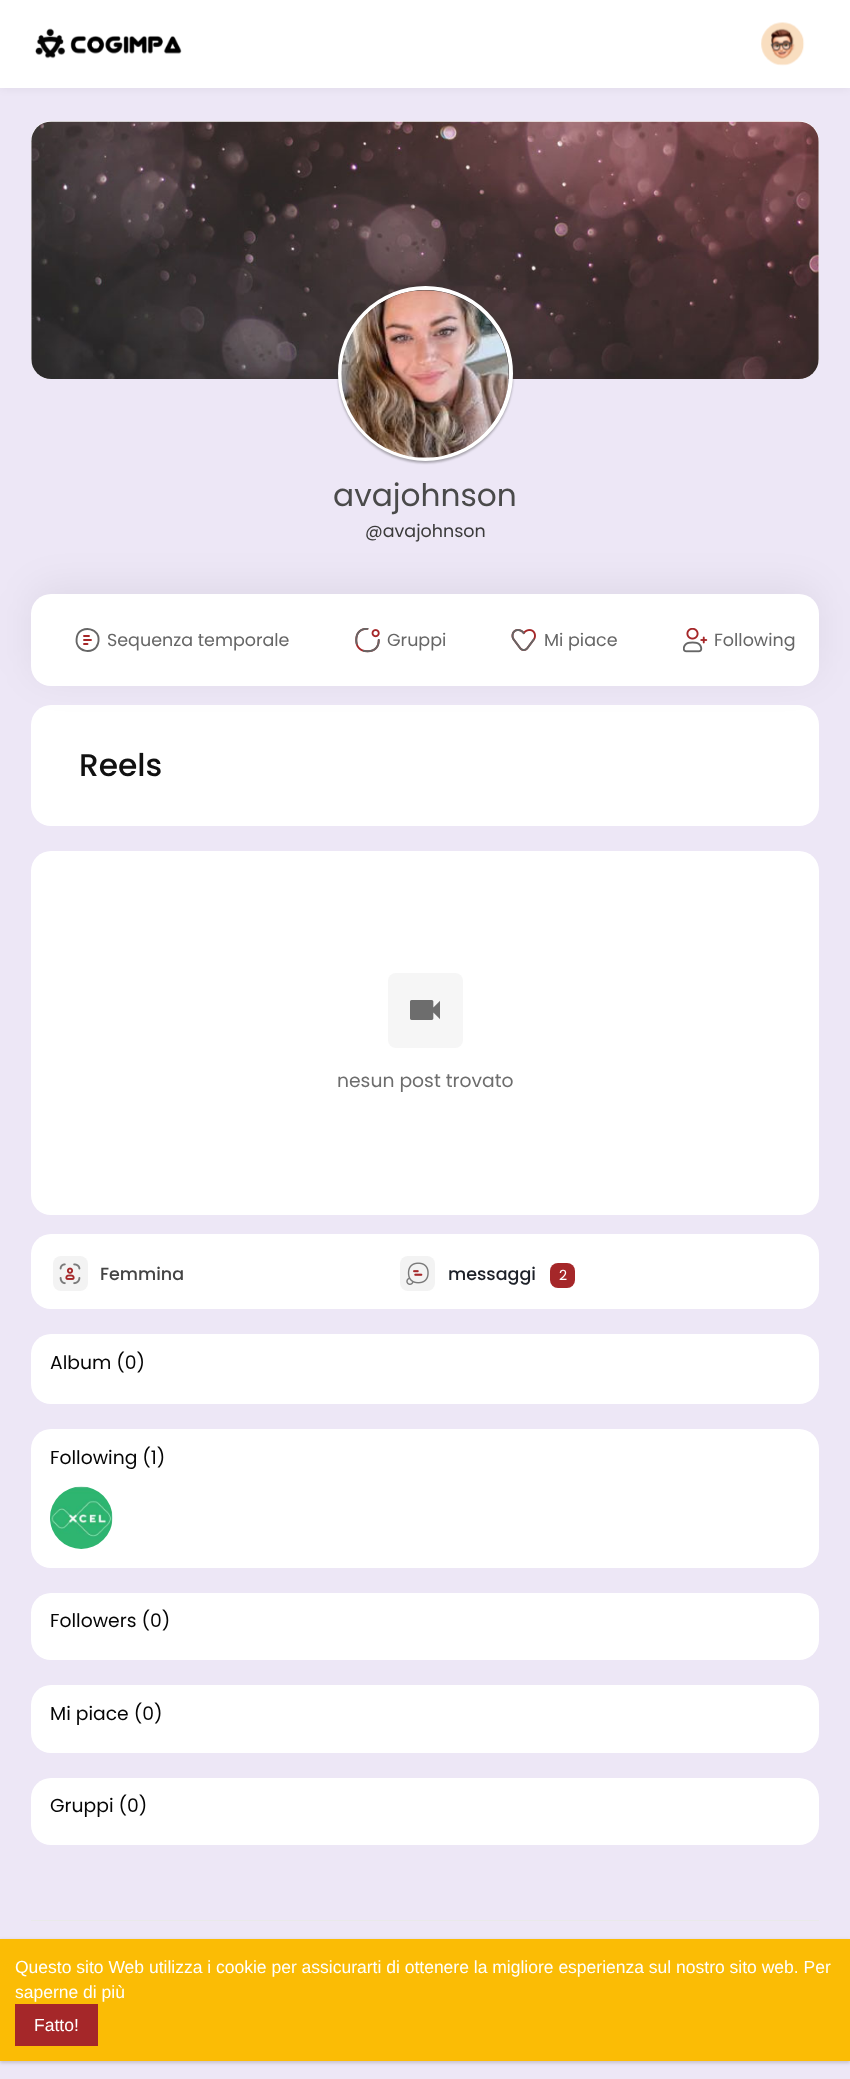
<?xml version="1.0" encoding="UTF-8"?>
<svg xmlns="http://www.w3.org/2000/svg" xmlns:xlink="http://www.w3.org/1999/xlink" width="850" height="2079">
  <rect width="100%" height="100%" fill="#ede7f6" />
  <rect y="1" width="850" height="88" fill="#000000" fill-opacity="0.05" filter="blur(4px)" />
  <rect width="850" height="88" fill="#ffffff" />
  <image x="35" y="28" width="147" height="31" xlink:href="image1.png" />
  <image x="761" y="22" width="44" height="44" xlink:href="image2.png" />
  <rect x="31" y="121" width="788" height="258" rx="20" fill="#ffffff" />
  <image x="31" y="121" width="788" height="258" xlink:href="image3.png" />
  <rect x="338" y="288" width="175" height="175" rx="87.5" fill="#444444" fill-opacity="0.42" filter="blur(1px)" />
  <circle cx="425.5" cy="373.5" r="85.5" fill="none" stroke="#ffffff" stroke-width="4" />
  <image x="341" y="290" width="168" height="168" xlink:href="image4.png" />
  <rect x="31" y="705" width="788" height="121" rx="20" fill="#ffffff" />
  <rect x="31" y="586" width="788" height="93" rx="20" fill="#000000" fill-opacity="0.06" filter="blur(19px)" />
  <rect x="31" y="594" width="788" height="92" rx="20" fill="#ffffff" />
  <path d="M 77 636.5 c 3 -12 25.5 -9.5 21 7 c -3 12 -25 9.5 -21 -7 z" fill="none" stroke="#666666" stroke-width="1.9" />
  <path d="M 84 636 h 5 m -5 8 h 3.5 m -3.5 -4 h 7" fill="none" stroke="#a52729" stroke-width="1.9" stroke-linecap="round" />
  <image x="355" y="628" width="25" height="25" xlink:href="image5.png" />
  <image x="511" y="629" width="25" height="22" xlink:href="image6.png" />
  <image x="683" y="628" width="25" height="25" xlink:href="image7.png" />
  <rect x="31" y="851" width="788" height="364" rx="20" fill="#ffffff" />
  <rect x="388" y="973" width="75" height="75" rx="8" fill="#f6f6f6" />
  <image x="410" y="1000" width="30" height="20" xlink:href="image8.png" />
  <rect x="31" y="1234" width="788" height="75" rx="20" fill="#ffffff" />
  <rect x="53" y="1256" width="35" height="35" rx="8" fill="#f3f3f3" />
  <image x="59" y="1263" width="22" height="22" xlink:href="image9.png" />
  <rect x="400" y="1256" width="35" height="35" rx="8" fill="#f3f3f3" />
  <image x="406" y="1262" width="23" height="23" xlink:href="image10.png" />
  <rect x="550" y="1263" width="25" height="25" rx="8" fill="#a52729" />
  <rect x="31" y="1334" width="788" height="70" rx="20" fill="#ffffff" />
  <rect x="31" y="1429" width="788" height="139" rx="20" fill="#ffffff" />
  <image x="50" y="1486" width="63" height="63" xlink:href="image11.png" />
  <rect x="31" y="1593" width="788" height="67" rx="20" fill="#ffffff" />
  <rect x="31" y="1685" width="788" height="68" rx="20" fill="#ffffff" />
  <rect x="31" y="1778" width="788" height="67" rx="20" fill="#ffffff" />
  <rect x="31" y="1920" width="788" height="1" fill="#e9e9e9" />
  <rect y="1940" width="850" height="123" fill="#000000" fill-opacity="0.06" filter="blur(1px)" />
  <rect y="1940" width="850" height="123" fill="#000000" fill-opacity="0.1" filter="blur(2px)" />
  <rect y="1939" width="850" height="122" fill="#fbbc05" />
  <rect x="15" y="2004" width="83" height="42" fill="#a52729" />
  <text x="333" y="506" style="font-family: Poppins; font-size: 31.25px; fill: #4a4a4a">avajohnson</text>
  <text x="365" y="537" style="font-family: Poppins; font-size: 17.5px; fill: #3b3b3b">@avajohnson</text>
  <text x="107" y="646" style="font-family: Poppins; font-size: 17.5px; fill: #666666">Sequenza temporale</text>
  <text x="387" y="646" style="font-family: Poppins; font-size: 17.5px; fill: #666666">Gruppi</text>
  <text x="544" y="646" style="font-family: Poppins; font-size: 17.5px; fill: #666666">Mi piace</text>
  <text x="714" y="646" style="font-family: Poppins; font-size: 17.5px; fill: #666666">Following</text>
  <text x="79" y="776" style="font-family: Poppins; font-size: 31.25px; font-weight: 500; fill: #111111">Reels</text>
  <text x="337" y="1087" style="font-family: Poppins; font-size: 18.75px; fill: #6d6d6d">nesun post trovato</text>
  <text x="100" y="1280" style="font-family: Poppins; font-size: 17.5px; font-weight: 500; fill: #444444">Femmina</text>
  <text x="448" y="1280" style="font-family: Poppins; font-size: 17.5px; font-weight: 500; fill: #1d2129">messaggi</text>
  <text x="559" y="1280" style="font-family: Poppins; font-size: 14px; fill: #ffffff">2</text>
  <text x="50" y="1369" style="font-family: Poppins; font-size: 18.75px; fill: #050505">Album (0)</text>
  <text x="50" y="1464" style="font-family: Poppins; font-size: 18.75px; fill: #050505">Following (1)</text>
  <text x="50" y="1627" style="font-family: Poppins; font-size: 18.75px; fill: #050505">Followers (0)</text>
  <text x="50" y="1720" style="font-family: Poppins; font-size: 18.75px; fill: #050505">Mi piace (0)</text>
  <text x="50" y="1812" style="font-family: Poppins; font-size: 18.75px; fill: #050505">Gruppi (0)</text>
  <text x="15" y="1973" style="font-family: Liberation Sans; font-size: 17.5px; fill: #ffffff">Questo sito Web utilizza i cookie per assicurarti di ottenere la migliore esperienza sul nostro sito web. Per</text>
  <text x="15" y="1998" style="font-family: Liberation Sans; font-size: 17.5px; fill: #ffffff">saperne di più</text>
  <text x="34" y="2031" style="font-family: Liberation Sans; font-size: 17.5px; fill: #ffffff">Fatto!</text>
</svg>
